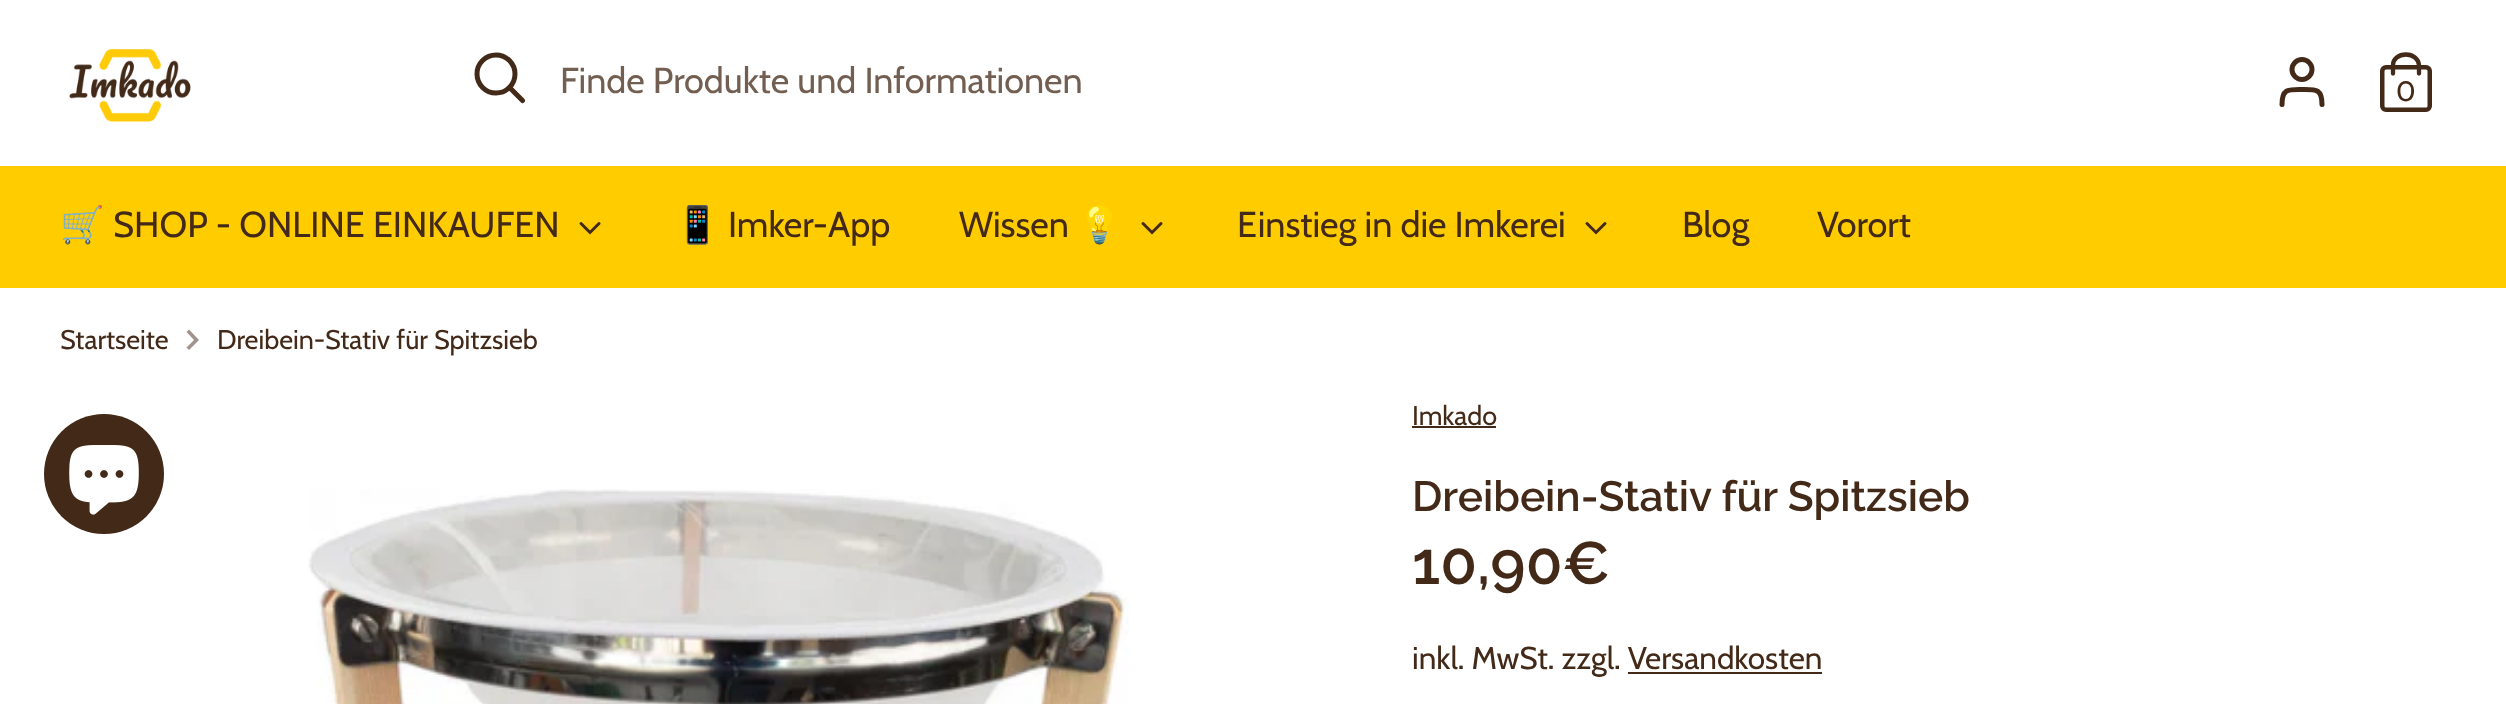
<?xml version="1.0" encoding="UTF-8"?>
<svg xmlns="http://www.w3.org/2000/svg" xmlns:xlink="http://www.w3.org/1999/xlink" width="2506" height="704">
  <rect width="100%" height="100%" fill="#ffffff" />
  <image x="69" y="49" width="122" height="73" xlink:href="image1.png" />
  <circle cx="496" cy="74" r="19" fill="none" stroke="#432918" stroke-width="5" />
  <path d="M 522.5 100.5 l -13 -13" fill="none" stroke="#432918" stroke-width="5" stroke-linecap="round" />
  <path d="M 2322 104.5 c 0 -16 -6 -15 -20 -15 c -14 0 -20 -1 -20 15" fill="none" stroke="#432918" stroke-width="5" stroke-linecap="round" />
  <circle cx="2302" cy="69.5" r="10" fill="none" stroke="#432918" stroke-width="5" />
  <rect x="2382.25" y="67.25" width="47.5" height="42.5" rx="3.75" fill="none" stroke="#432918" stroke-width="4.5" />
  <path d="M 2393 73.5 v -8.5 c 0 -6 5.5 -10.5 13 -10.5 c 7 0 12.5 4.5 13 10.5 v 8.5" fill="none" stroke="#432918" stroke-width="4.3" stroke-linecap="round" />
  <rect y="166" width="2506" height="122" fill="#ffcc00" />
  <path d="M 581 223.5 l 9 9 l 9 -9" fill="none" stroke="#432918" stroke-width="3" stroke-linecap="round" />
  <path d="M 1143 223.5 l 9 9 l 9 -9" fill="none" stroke="#432918" stroke-width="3" stroke-linecap="round" />
  <path d="M 1587 223.5 l 9 9 l 9 -9" fill="none" stroke="#432918" stroke-width="3" stroke-linecap="round" />
  <path d="M 186.5 347.5 l 7.5 -7.5 l -7.5 -8 l 2.5 -2.5 l 10 10.5 l -10 10 z" fill="#a1948c" />
  <circle cx="104" cy="474" r="60" fill="#432918" />
  <image x="69" y="445" width="70" height="70" xlink:href="image2.png" />
  <image x="308" y="489" width="821" height="215" xlink:href="image3.png" />
  <rect x="1412" y="426" width="84" height="2" fill="#432918" />
  <rect x="1628" y="672" width="194" height="2" fill="#432918" />
  <text x="560" y="93" style="font-family: Cabin; font-size: 36px; fill: #725f52">Finde Produkte und Informationen</text>
  <text x="2396" y="101" style="font-family: Cabin; font-size: 28px; fill: #432918">0</text>
  <text x="60" y="237" style="font-family: Noto Color Emoji; font-size: 36px; fill: #432918">🛒</text>
  <text x="113" y="237" style="font-family: Cabin; font-size: 36px; fill: #432918">SHOP - ONLINE EINKAUFEN</text>
  <text x="675" y="237" style="font-family: Noto Color Emoji; font-size: 36px; fill: #432918">📱</text>
  <text x="728" y="237" style="font-family: Cabin; font-size: 36px; fill: #432918">Imker-App</text>
  <text x="959" y="237" style="font-family: Cabin; font-size: 36px; fill: #432918">Wissen</text>
  <text x="1077" y="237" style="font-family: Noto Color Emoji; font-size: 36px; fill: #432918">💡</text>
  <text x="1237" y="237" style="font-family: Cabin; font-size: 36px; fill: #432918">Einstieg in die Imkerei</text>
  <text x="1682" y="237" style="font-family: Cabin; font-size: 36px; fill: #432918">Blog</text>
  <text x="1817" y="237" style="font-family: Cabin; font-size: 36px; fill: #432918">Vorort</text>
  <text x="60" y="349" style="font-family: Cabin; font-size: 27px; fill: #432918">Startseite</text>
  <text x="217" y="349" style="font-family: Cabin; font-size: 27px; fill: #432918">Dreibein-Stativ für Spitzsieb</text>
  <text x="1412" y="425" style="font-family: Cabin; font-size: 27px; fill: #432918">Imkado</text>
  <text x="1412" y="511" style="font-family: Raleway; font-size: 42.4px; font-weight: 600; fill: #432918">Dreibein-Stativ für Spitzsieb</text>
  <text x="1412" y="584" style="font-family: Raleway; font-size: 60px; font-weight: 600; fill: #432918">10,90€</text>
  <text x="1412" y="669" style="font-family: Cabin; font-size: 31.5px; fill: #432918">inkl. MwSt. zzgl. Versandkosten</text>
</svg>
